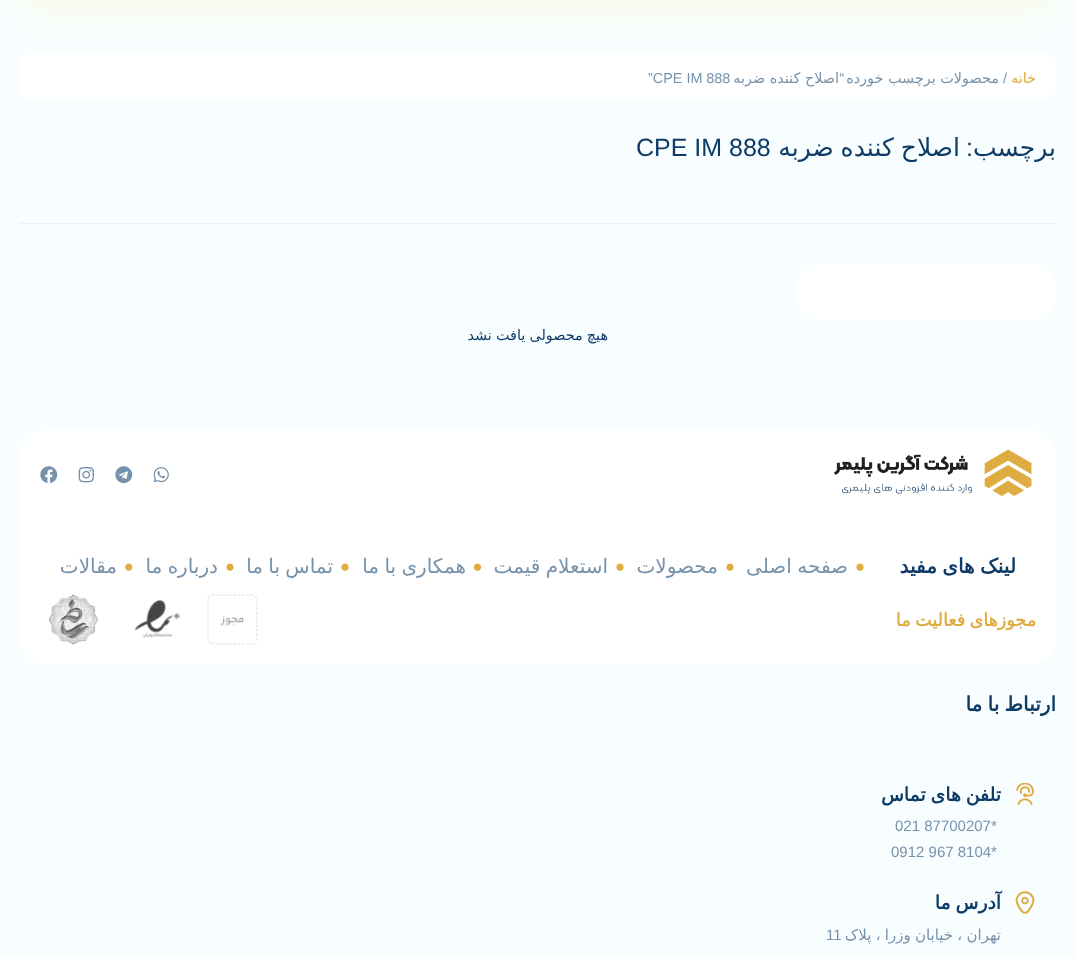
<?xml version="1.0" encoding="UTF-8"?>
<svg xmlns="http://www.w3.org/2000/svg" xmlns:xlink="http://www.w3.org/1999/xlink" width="1076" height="957">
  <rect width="100%" height="100%" fill="#f8fdff" />
  <rect x="20" y="-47" width="1036" height="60" rx="25" fill="#ffed00" fill-opacity="0.09" filter="blur(15.5px)" />
  <rect x="20" y="53" width="1036" height="47" rx="13" fill="#ffffff" />
  <rect x="20" y="223" width="1036" height="1" fill="#edf0f2" />
  <rect x="798" y="264" width="258" height="56" rx="20" fill="#ffffff" />
  <rect x="20" y="430" width="1036" height="235" rx="25" fill="#ffffff" />
  <image x="834" y="449" width="198" height="47" xlink:href="image1.png" />
  <image x="153" y="467" width="16" height="16" xlink:href="image2.png" />
  <image x="115" y="466" width="18" height="18" xlink:href="image3.png" />
  <image x="78" y="467" width="16" height="16" xlink:href="image4.png" />
  <image x="40" y="466" width="18" height="17" xlink:href="image5.png" />
  <image x="856" y="563" width="8" height="8" xlink:href="image6.png" />
  <image x="726" y="563" width="8" height="8" xlink:href="image6.png" />
  <image x="616" y="563" width="8" height="8" xlink:href="image6.png" />
  <image x="473" y="563" width="9" height="8" xlink:href="image7.png" />
  <image x="341" y="563" width="8" height="8" xlink:href="image6.png" />
  <image x="226" y="563" width="8" height="8" xlink:href="image6.png" />
  <image x="125" y="563" width="8" height="8" xlink:href="image8.png" />
  <image x="207" y="594" width="51" height="51" xlink:href="image9.png" />
  <image x="134" y="600" width="47" height="38" xlink:href="image10.png" />
  <image x="48" y="594" width="51" height="51" xlink:href="image11.png" />
  <image x="1016" y="783" width="18" height="22" xlink:href="image12.png" />
  <image x="1015" y="891" width="20" height="23" xlink:href="image13.png" />
  <text x="1036" y="83" style="font-family: DejaVu Sans; font-size: 14.4px; direction: rtl; fill: #deac41">خانه</text>
  <text x="1007" y="83" style="font-family: Liberation Sans; font-size: 14.4px; direction: rtl; fill: #7692ab">/</text>
  <text x="999" y="83" style="font-family: DejaVu Sans; font-size: 14.4px; direction: rtl; fill: #7692ab">محصولات برچسب خورده</text>
  <text x="844" y="83" style="font-family: Liberation Sans; font-size: 14.4px; direction: rtl; fill: #7692ab">“</text>
  <text x="839" y="83" style="font-family: DejaVu Sans; font-size: 14.4px; direction: rtl; fill: #7692ab">اصلاح کننده ضربه</text>
  <text x="648" y="83" style="font-family: Liberation Sans; font-size: 14.4px; fill: #7692ab">”CPE IM 888</text>
  <text x="1056" y="156" style="font-family: DejaVu Sans; font-size: 25px; direction: rtl; fill: #0d3b66">برچسب</text>
  <text x="973" y="156" style="font-family: Liberation Sans; font-size: 25px; direction: rtl; fill: #0d3b66">:</text>
  <text x="960" y="156" word-spacing="-1" style="font-family: DejaVu Sans; font-size: 25px; direction: rtl; fill: #0d3b66">اصلاح کننده ضربه</text>
  <text x="636" y="156" style="font-family: Liberation Sans; font-size: 25px; fill: #0d3b66">CPE IM 888</text>
  <text x="608" y="340" word-spacing="-0.5" style="font-family: DejaVu Sans; font-size: 14.4px; direction: rtl; fill: #0d3b66">هیچ محصولی یافت نشد</text>
  <text x="1016" y="573" word-spacing="-1" style="font-family: DejaVu Sans; font-size: 20px; font-weight: bold; direction: rtl; fill: #0d3b66">لینک های مفید</text>
  <text x="848" y="573" word-spacing="-1" style="font-family: DejaVu Sans; font-size: 20px; direction: rtl; fill: #7692ab">صفحه اصلی</text>
  <text x="718" y="573" style="font-family: DejaVu Sans; font-size: 20px; direction: rtl; fill: #7692ab">محصولات</text>
  <text x="608" y="573" word-spacing="-1" style="font-family: DejaVu Sans; font-size: 20px; direction: rtl; fill: #7692ab">استعلام قیمت</text>
  <text x="466" y="573" word-spacing="-1" style="font-family: DejaVu Sans; font-size: 20px; direction: rtl; fill: #7692ab">همکاری با ما</text>
  <text x="333" y="573" word-spacing="-1" style="font-family: DejaVu Sans; font-size: 20px; direction: rtl; fill: #7692ab">تماس با ما</text>
  <text x="218" y="573" word-spacing="-1" style="font-family: DejaVu Sans; font-size: 20px; direction: rtl; fill: #7692ab">درباره ما</text>
  <text x="117" y="573" style="font-family: DejaVu Sans; font-size: 20px; direction: rtl; fill: #7692ab">مقالات</text>
  <text x="1036" y="626" word-spacing="-1" style="font-family: DejaVu Sans; font-size: 17.5px; font-weight: bold; direction: rtl; fill: #deac41">مجوزهای فعالیت ما</text>
  <text x="1056" y="711" word-spacing="-1" style="font-family: DejaVu Sans; font-size: 20px; font-weight: bold; direction: rtl; fill: #0d3b66">ارتباط با ما</text>
  <text x="1001" y="801" word-spacing="-1" style="font-family: DejaVu Sans; font-size: 18.75px; font-weight: bold; direction: rtl; fill: #0d3b66">تلفن های تماس</text>
  <text x="895" y="831" style="font-family: Liberation Sans; font-size: 15px; fill: #7692ab">021 87700207*</text>
  <text x="891" y="857" style="font-family: Liberation Sans; font-size: 15px; fill: #7692ab">0912 967 8104*</text>
  <text x="1001" y="909" word-spacing="-1" style="font-family: DejaVu Sans; font-size: 18.75px; font-weight: bold; direction: rtl; fill: #0d3b66">آدرس ما</text>
  <text x="1001" y="940" word-spacing="-0.5" style="font-family: DejaVu Sans; font-size: 15px; direction: rtl; fill: #7692ab">تهران ، خیابان وزرا ، پلاک</text>
  <text x="826" y="940" style="font-family: Liberation Sans; font-size: 15px; fill: #7692ab">11</text>
</svg>
